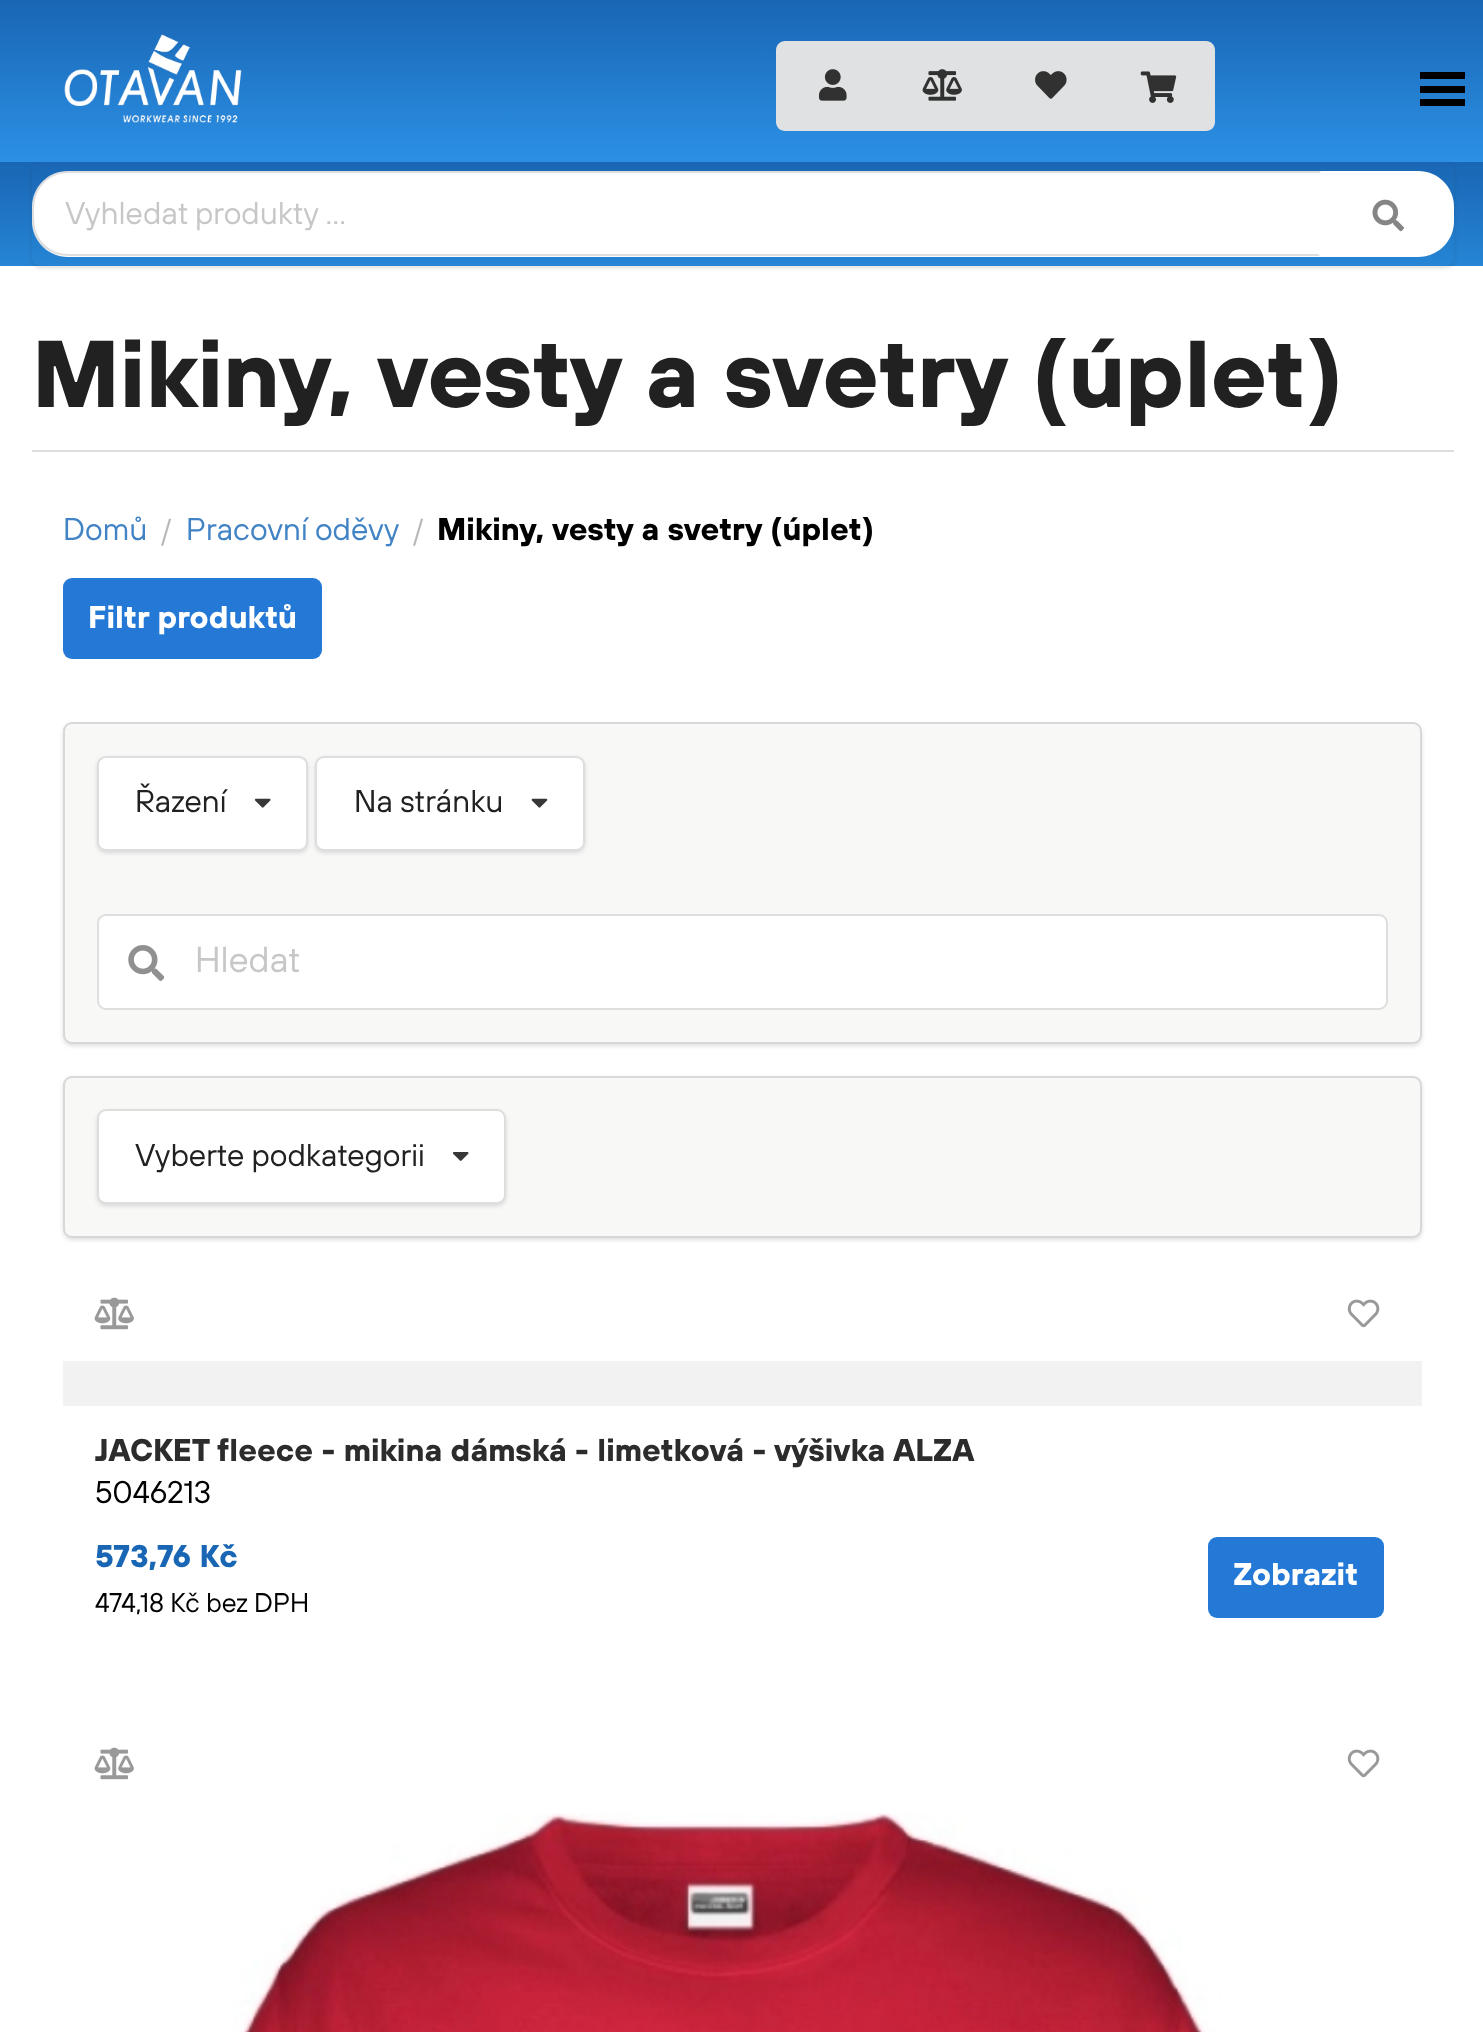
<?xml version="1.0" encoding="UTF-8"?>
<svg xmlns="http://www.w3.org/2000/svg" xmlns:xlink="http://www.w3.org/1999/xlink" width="1483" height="2032">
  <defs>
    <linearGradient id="g1" gradientUnits="userSpaceOnUse" x1="743" y1="0" x2="743" y2="162"><stop offset="0" stop-color="#1966b4" /><stop offset="1" stop-color="#2c90e5" /></linearGradient>
    <linearGradient id="g2" gradientUnits="userSpaceOnUse" x1="743" y1="162" x2="743" y2="266"><stop offset="0" stop-color="#1966b4" /><stop offset="1" stop-color="#2685d5" /></linearGradient>
    <clipPath id="clip1"><path d="M 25 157 h 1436 v 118 h -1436 z m 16 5 h 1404 c 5 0 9 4 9 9 v 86 c 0 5 -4 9 -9 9 h -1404 c -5 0 -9 -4 -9 -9 v -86 c 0 -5 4 -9 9 -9 z" clip-rule="evenodd" /></clipPath>
  </defs>
  <rect width="100%" height="100%" fill="#ffffff" />
  <rect width="1483" height="162" fill="url(#g1)" />
  <image x="64" y="34" width="178" height="89" xlink:href="image1.png" />
  <path d="M 785 41 h 102 v 90 h -102 c -5 0 -9 -4 -9 -9 v -72 c 0 -5 4 -9 9 -9 z" fill="#e0e1e2" />
  <image x="819" y="69" width="28" height="32" xlink:href="image2.png" />
  <rect x="887" y="41" width="218" height="90" fill="#e0e1e2" />
  <image x="922" y="69" width="40" height="32" xlink:href="image3.png" />
  <path d="M 1105 41 h 101 c 5 0 9 4 9 9 v 72 c 0 5 -4 9 -9 9 h -101 z" fill="#e0e1e2" />
  <image x="1140" y="71" width="37" height="32" xlink:href="image4.png" />
  <image x="1035" y="71" width="32" height="28" xlink:href="image5.png" />
  <rect y="162" width="1483" height="104" fill="url(#g2)" />
  <g clip-path="url(#clip1)">
    <rect x="32" y="164" width="1422" height="104" rx="9" fill="#222426" fill-opacity="0.15" filter="blur(2px)" />
  </g>
  <rect x="1420" y="72" width="45" height="7" fill="#000000" />
  <rect x="1420" y="86" width="45" height="7" fill="#000000" />
  <rect x="1420" y="99" width="45" height="7" fill="#000000" />
  <path d="M 68 171 h 1253 v 86 h -1253 c -20 0 -36 -16 -36 -36 v -14 c 0 -20 16 -36 36 -36 z" fill="#ffffff" />
  <path d="M 68 171 c -10 0 -19 4 -26 11 l 2 1 c 6 -6 14 -10 24 -10 h 1250 v 1 l 3 -3 z" fill="#222426" fill-opacity="0.15" />
  <path d="M 1320 256 h -1252 c -10 0 -19 -4 -26 -10 l 2 -2 c 6 6 14 10 24 10 h 1250 z" fill="#222426" fill-opacity="0.15" />
  <path d="M 42 182 c -9 9 -10 19 -10 32 c 0 12 1 22 10 32 l 2 -2 c -9 -9 -10 -19 -10 -30 c 0 -12 1 -22 10 -31 z" fill="#222426" fill-opacity="0.15" />
  <path d="M 1321 171 h 97 c 20 0 36 16 36 36 v 14 c 0 20 -16 36 -36 36 h -97 z" fill="#ffffff" />
  <image x="1372" y="199" width="32" height="33" xlink:href="image6.png" />
  <rect x="32" y="450" width="1422" height="2" fill="#dedede" />
  <rect x="63" y="578" width="259" height="81" rx="9" fill="#2478d6" />
  <rect x="63" y="725" width="1359" height="321" rx="9" fill="#222426" fill-opacity="0.15" filter="blur(2px)" />
  <rect x="63" y="722" width="1359" height="322" rx="9" fill="#f8f8f7" />
  <rect x="64" y="723" width="1357" height="320" rx="8" fill="none" stroke="#222426" stroke-opacity="0.15" stroke-width="2" />
  <rect x="97" y="758" width="211" height="95" rx="9" fill="#222426" fill-opacity="0.15" filter="blur(2px)" />
  <rect x="97" y="756" width="211" height="95" rx="9" fill="#ffffff" />
  <rect x="98" y="757" width="209" height="93" rx="8" fill="none" stroke="#222426" stroke-opacity="0.15" stroke-width="2" />
  <image x="254" y="798" width="17" height="10" xlink:href="image7.png" />
  <rect x="315" y="758" width="270" height="95" rx="9" fill="#222426" fill-opacity="0.15" filter="blur(2px)" />
  <rect x="315" y="756" width="270" height="95" rx="9" fill="#ffffff" />
  <rect x="316" y="757" width="268" height="93" rx="8" fill="none" stroke="#222426" stroke-opacity="0.15" stroke-width="2" />
  <image x="531" y="798" width="17" height="10" xlink:href="image8.png" />
  <rect x="97" y="914" width="1291" height="96" rx="9" fill="#ffffff" />
  <rect x="98" y="915" width="1289" height="94" rx="8" fill="none" stroke="#222426" stroke-opacity="0.15" stroke-width="2" />
  <image x="128" y="945" width="37" height="36" xlink:href="image9.png" />
  <rect x="63" y="1078" width="1359" height="162" rx="9" fill="#222426" fill-opacity="0.15" filter="blur(2px)" />
  <rect x="63" y="1076" width="1359" height="162" rx="9" fill="#f8f8f7" />
  <rect x="64" y="1077" width="1357" height="160" rx="8" fill="none" stroke="#222426" stroke-opacity="0.15" stroke-width="2" />
  <rect x="97" y="1112" width="409" height="94" rx="9" fill="#222426" fill-opacity="0.15" filter="blur(2px)" />
  <rect x="97" y="1109" width="409" height="95" rx="9" fill="#ffffff" />
  <rect x="98" y="1110" width="407" height="93" rx="8" fill="none" stroke="#222426" stroke-opacity="0.15" stroke-width="2" />
  <image x="452" y="1152" width="17" height="9" xlink:href="image10.png" />
  <image x="94" y="1297" width="40" height="33" xlink:href="image11.png" />
  <image x="1347" y="1299" width="33" height="29" xlink:href="image12.png" />
  <rect x="63" y="1361" width="1359" height="45" fill="#f2f2f2" />
  <rect x="1208" y="1537" width="176" height="81" rx="9" fill="#2478d6" />
  <image x="94" y="1747" width="40" height="33" xlink:href="image11.png" />
  <image x="1347" y="1749" width="33" height="29" xlink:href="image12.png" />
  <image x="63" y="1813" width="1359" height="219" xlink:href="image13.png" />
  <text x="65" y="224" style="font-family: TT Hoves; font-size: 31.5px; fill: #c7c7c7">Vyhledat produkty ...</text>
  <text x="32" y="407" style="font-family: TT Hoves; font-size: 94.5px; font-weight: bold; fill: #212121">Mikiny, vesty a svetry (úplet)</text>
  <text x="63" y="540" style="font-family: TT Hoves; font-size: 31.5px; fill: #4183c4">Domů</text>
  <text x="161" y="540" style="font-family: TT Hoves; font-size: 29px; fill: #b8b8b8">/</text>
  <text x="186" y="540" style="font-family: TT Hoves; font-size: 31.5px; fill: #4183c4">Pracovní oděvy</text>
  <text x="413" y="540" style="font-family: TT Hoves; font-size: 29px; fill: #b8b8b8">/</text>
  <text x="437" y="540" style="font-family: TT Hoves; font-size: 31.5px; font-weight: bold; fill: #000000">Mikiny, vesty a svetry (úplet)</text>
  <text x="88" y="628" style="font-family: TT Hoves; font-size: 31.5px; font-weight: bold; fill: #ffffff">Filtr produktů</text>
  <text x="135" y="812" style="font-family: TT Hoves; font-size: 31.5px; fill: #212121">Řazení</text>
  <text x="354" y="812" style="font-family: TT Hoves; font-size: 31.5px; fill: #212121">Na stránku</text>
  <text x="195" y="972" style="font-family: TT Hoves; font-size: 36px; fill: #c7c7c7">Hledat</text>
  <text x="135" y="1166" style="font-family: TT Hoves; font-size: 31.5px; fill: #212121">Vyberte podkategorii</text>
  <text x="95" y="1461" style="font-family: TT Hoves; font-size: 31.5px; font-weight: bold; fill: #2d2c2c">JACKET fleece - mikina dámská - limetková - výšivka ALZA</text>
  <text x="95" y="1503" style="font-family: TT Hoves; font-size: 31.5px; fill: #000000">5046213</text>
  <text x="95" y="1567" style="font-family: TT Hoves; font-size: 31.5px; font-weight: bold; fill: #1966b4">573,76 Kč</text>
  <text x="95" y="1612" style="font-family: TT Hoves; font-size: 27px; fill: #000000">474,18 Kč bez DPH</text>
  <text x="1233" y="1585" style="font-family: TT Hoves; font-size: 31.5px; font-weight: bold; fill: #ffffff">Zobrazit</text>
</svg>
